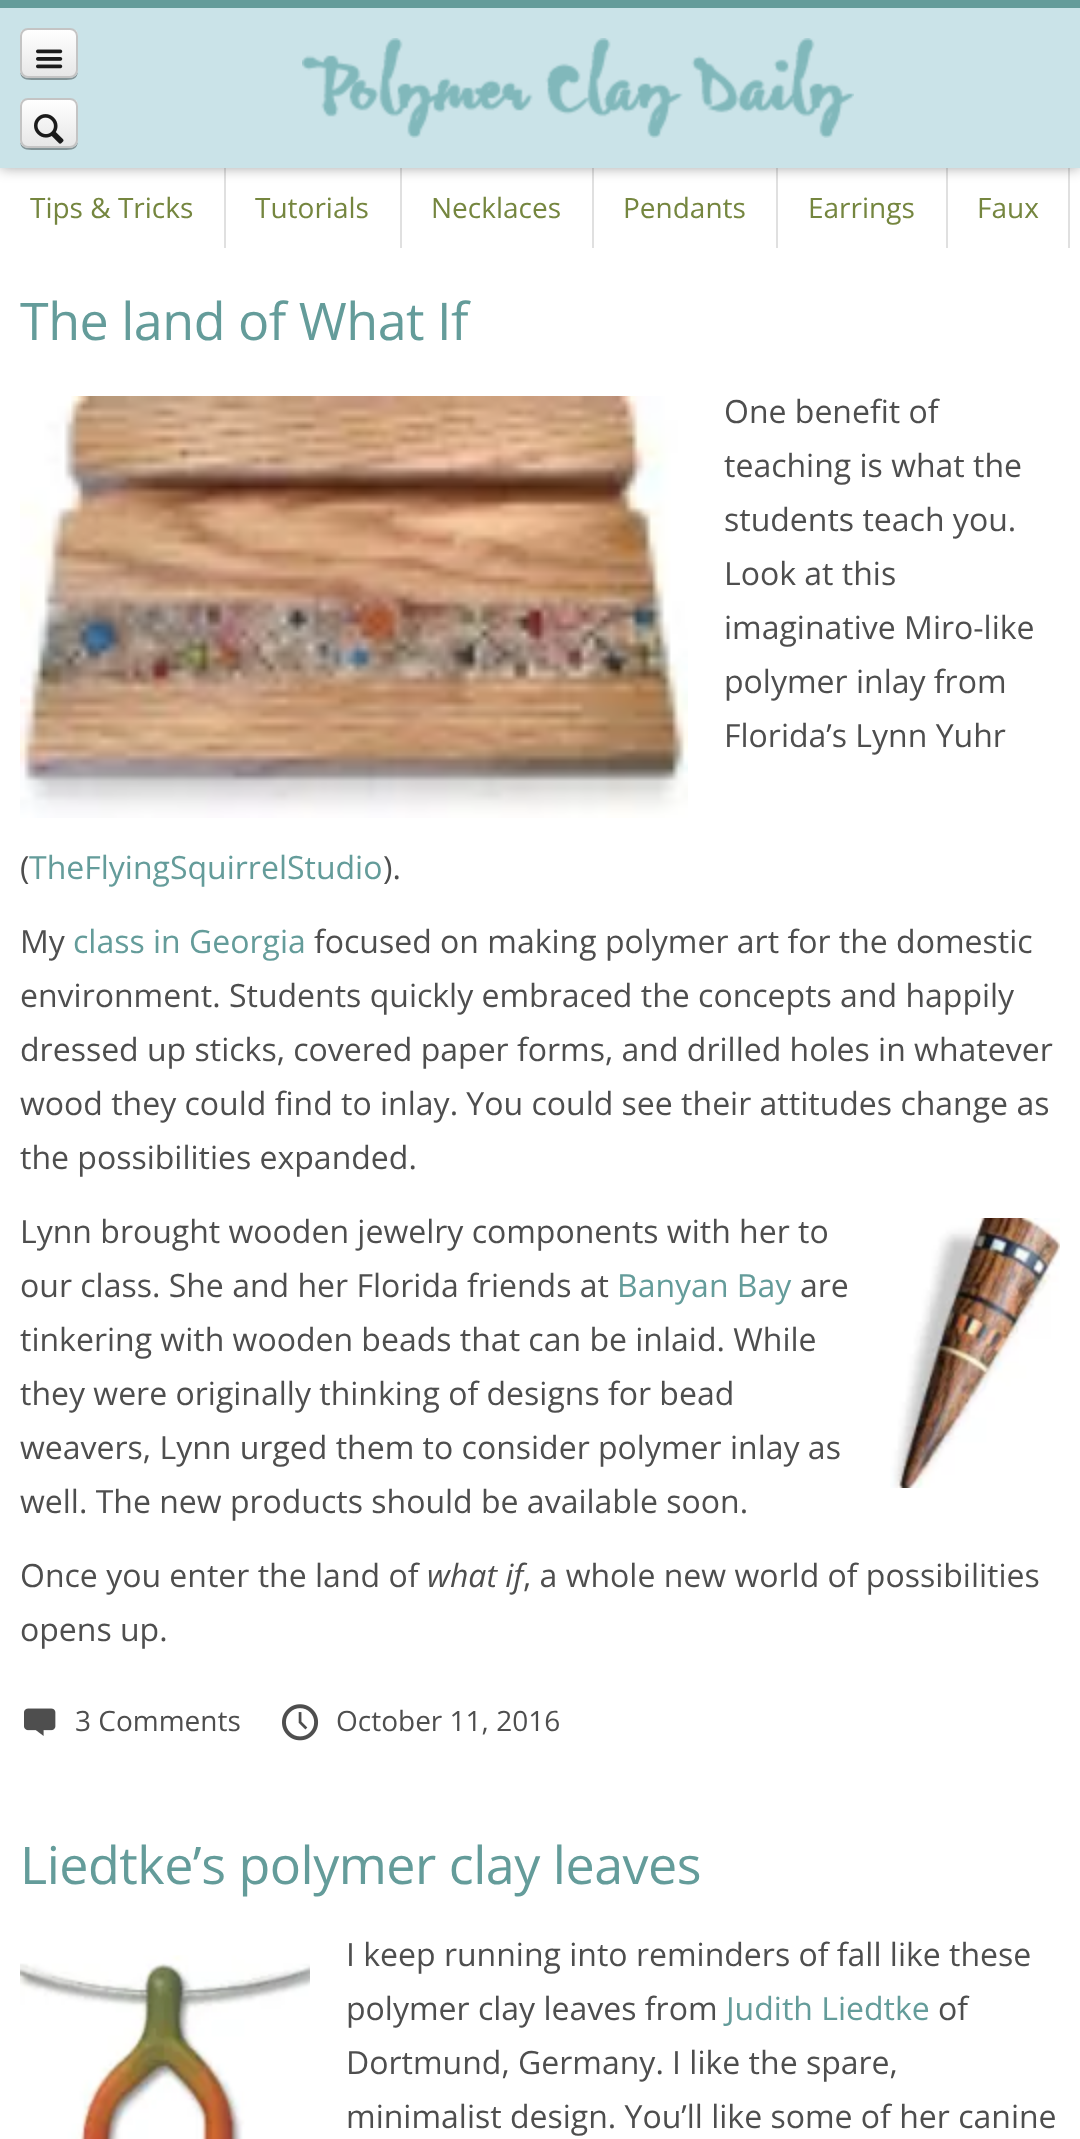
<?xml version="1.0" encoding="UTF-8"?>
<svg xmlns="http://www.w3.org/2000/svg" xmlns:xlink="http://www.w3.org/1999/xlink" width="1080" height="2139">
  <defs>
    <clipPath id="clip1"><rect x="20" y="28" width="58" height="50" rx="8" /></clipPath>
    <linearGradient id="g1" gradientUnits="userSpaceOnUse" x1="49" y1="30" x2="49" y2="76"><stop offset="0" stop-color="#ffffff" /><stop offset="1" stop-color="#e7e7e7" /></linearGradient>
    <clipPath id="clip2"><rect x="20" y="98" width="58" height="50" rx="8" /></clipPath>
    <linearGradient id="g2" gradientUnits="userSpaceOnUse" x1="49" y1="100" x2="49" y2="146"><stop offset="0" stop-color="#ffffff" /><stop offset="1" stop-color="#e7e7e7" /></linearGradient>
  </defs>
  <rect width="100%" height="100%" fill="#ffffff" />
  <rect x="224" y="168" width="2" height="80" fill="#e0e0e0" />
  <rect x="400" y="168" width="2" height="80" fill="#e0e0e0" />
  <rect x="592" y="168" width="2" height="80" fill="#e0e0e0" />
  <rect x="776" y="168" width="2" height="80" fill="#e0e0e0" />
  <rect x="946" y="168" width="2" height="80" fill="#e0e0e0" />
  <rect x="1068" y="168" width="2" height="80" fill="#e0e0e0" />
  <rect y="8" width="1080" height="160" fill="#000000" fill-opacity="0.35" filter="blur(7px)" />
  <rect y="8" width="1080" height="160" fill="#cae3e8" />
  <path d="M 20 70 c 0 10 6 10 15 10 h 28 c 9 0 15 0 15 -10 c 0 4 -4 8 -8 8 h -42 c -4 0 -8 -4 -8 -8 z" fill="#839497" />
  <g clip-path="url(#clip1)">
    <rect x="20" y="30" width="58" height="46" fill="url(#g1)" />
  </g>
  <rect x="21" y="29" width="56" height="48" rx="7" fill="none" stroke="#c4c4c4" stroke-width="2" />
  <image x="36" y="49" width="27" height="20" xlink:href="image1.png" />
  <path d="M 20 140 c 0 10 6 10 15 10 h 28 c 9 0 15 0 15 -10 c 0 4 -4 8 -8 8 h -42 c -4 0 -8 -4 -8 -8 z" fill="#839497" />
  <g clip-path="url(#clip2)">
    <rect x="20" y="100" width="58" height="46" fill="url(#g2)" />
  </g>
  <rect x="21" y="99" width="56" height="48" rx="7" fill="none" stroke="#c4c4c4" stroke-width="2" />
  <image x="34" y="114" width="30" height="30" xlink:href="image2.png" />
  <image x="302" y="38" width="552" height="100" xlink:href="image3.png" />
  <rect width="1080" height="8" fill="#649c9a" />
  <image x="20" y="396" width="668" height="422" xlink:href="image4.png" />
  <image x="890" y="1218" width="170" height="270" xlink:href="image5.png" />
  <image x="24" y="1708" width="32" height="28" xlink:href="image6.png" />
  <image x="282" y="1704" width="37" height="37" xlink:href="image7.png" />
  <image x="20" y="1955" width="290" height="184" xlink:href="image8.png" />
  <text x="30" y="218" style="font-family: Open Sans; font-size: 28px; fill: #75863f">Tips &amp; Tricks</text>
  <text x="255" y="218" style="font-family: Open Sans; font-size: 28px; fill: #75863f">Tutorials</text>
  <text x="431" y="218" style="font-family: Open Sans; font-size: 28px; fill: #75863f">Necklaces</text>
  <text x="623" y="218" style="font-family: Open Sans; font-size: 28px; fill: #75863f">Pendants</text>
  <text x="808" y="218" style="font-family: Open Sans; font-size: 28px; fill: #75863f">Earrings</text>
  <text x="977" y="218" style="font-family: Open Sans; font-size: 28px; fill: #75863f">Faux</text>
  <text x="20" y="340" style="font-family: Open Sans; font-size: 52px; letter-spacing: -0.5px; fill: #649c9a">The land of What If</text>
  <text x="724" y="423" style="font-family: Open Sans; font-size: 32px; fill: #4e4e4e">One benefit of</text>
  <text x="724" y="477" style="font-family: Open Sans; font-size: 32px; fill: #4e4e4e">teaching is what the</text>
  <text x="724" y="531" style="font-family: Open Sans; font-size: 32px; fill: #4e4e4e">students teach you.</text>
  <text x="724" y="585" style="font-family: Open Sans; font-size: 32px; fill: #4e4e4e">Look at this</text>
  <text x="724" y="639" style="font-family: Open Sans; font-size: 32px; fill: #4e4e4e">imaginative Miro-like</text>
  <text x="724" y="693" style="font-family: Open Sans; font-size: 32px; fill: #4e4e4e">polymer inlay from</text>
  <text x="724" y="747" style="font-family: Open Sans; font-size: 32px; fill: #4e4e4e">Florida’s Lynn Yuhr</text>
  <text x="20" y="879" style="font-family: Open Sans; font-size: 32px; fill: #4e4e4e">(</text>
  <text x="29" y="879" style="font-family: Open Sans; font-size: 32px; fill: #649c9a">TheFlyingSquirrelStudio</text>
  <text x="383" y="879" style="font-family: Open Sans; font-size: 32px; fill: #4e4e4e">).</text>
  <text x="20" y="953" style="font-family: Open Sans; font-size: 32px; fill: #4e4e4e">My</text>
  <text x="73" y="953" style="font-family: Open Sans; font-size: 32px; fill: #649c9a">class in Georgia</text>
  <text x="314" y="953" style="font-family: Open Sans; font-size: 32px; fill: #4e4e4e">focused on making polymer art for the domestic</text>
  <text x="20" y="1007" style="font-family: Open Sans; font-size: 32px; fill: #4e4e4e">environment. Students quickly embraced the concepts and happily</text>
  <text x="20" y="1061" style="font-family: Open Sans; font-size: 32px; fill: #4e4e4e">dressed up sticks, covered paper forms, and drilled holes in whatever</text>
  <text x="20" y="1115" style="font-family: Open Sans; font-size: 32px; fill: #4e4e4e">wood they could find to inlay. You could see their attitudes change as</text>
  <text x="20" y="1169" style="font-family: Open Sans; font-size: 32px; fill: #4e4e4e">the possibilities expanded.</text>
  <text x="20" y="1243" style="font-family: Open Sans; font-size: 32px; fill: #4e4e4e">Lynn brought wooden jewelry components with her to</text>
  <text x="20" y="1297" style="font-family: Open Sans; font-size: 32px; fill: #4e4e4e">our class. She and her Florida friends at</text>
  <text x="617" y="1297" style="font-family: Open Sans; font-size: 32px; fill: #649c9a">Banyan Bay</text>
  <text x="800" y="1297" style="font-family: Open Sans; font-size: 32px; fill: #4e4e4e">are</text>
  <text x="20" y="1351" style="font-family: Open Sans; font-size: 32px; fill: #4e4e4e">tinkering with wooden beads that can be inlaid. While</text>
  <text x="20" y="1405" style="font-family: Open Sans; font-size: 32px; fill: #4e4e4e">they were originally thinking of designs for bead</text>
  <text x="20" y="1459" style="font-family: Open Sans; font-size: 32px; fill: #4e4e4e">weavers, Lynn urged them to consider polymer inlay as</text>
  <text x="20" y="1513" style="font-family: Open Sans; font-size: 32px; fill: #4e4e4e">well. The new products should be available soon.</text>
  <text x="20" y="1587" style="font-family: Open Sans; font-size: 32px; fill: #4e4e4e">Once you enter the land of</text>
  <text x="427" y="1587" style="font-family: Open Sans; font-size: 32px; font-style: italic; fill: #4e4e4e">what if</text>
  <text x="523" y="1587" style="font-family: Open Sans; font-size: 32px; fill: #4e4e4e">, a whole new world of possibilities</text>
  <text x="20" y="1641" style="font-family: Open Sans; font-size: 32px; fill: #4e4e4e">opens up.</text>
  <text x="75" y="1731" style="font-family: Open Sans; font-size: 28px; fill: #4e4e4e">3 Comments</text>
  <text x="336" y="1731" style="font-family: Open Sans; font-size: 28px; fill: #4e4e4e">October 11, 2016</text>
  <text x="20" y="1884" style="font-family: Open Sans; font-size: 52px; letter-spacing: -0.5px; fill: #649c9a">Liedtke’s polymer clay leaves</text>
  <text x="346" y="1966" style="font-family: Open Sans; font-size: 32px; fill: #4e4e4e">I keep running into reminders of fall like these</text>
  <text x="346" y="2020" style="font-family: Open Sans; font-size: 32px; fill: #4e4e4e">polymer clay leaves from</text>
  <text x="726" y="2020" style="font-family: Open Sans; font-size: 32px; fill: #649c9a">Judith Liedtke</text>
  <text x="938" y="2020" style="font-family: Open Sans; font-size: 32px; fill: #4e4e4e">of</text>
  <text x="346" y="2074" style="font-family: Open Sans; font-size: 32px; fill: #4e4e4e">Dortmund, Germany. I like the spare,</text>
  <text x="346" y="2128" style="font-family: Open Sans; font-size: 32px; fill: #4e4e4e">minimalist design. You’ll like some of her canine</text>
</svg>
